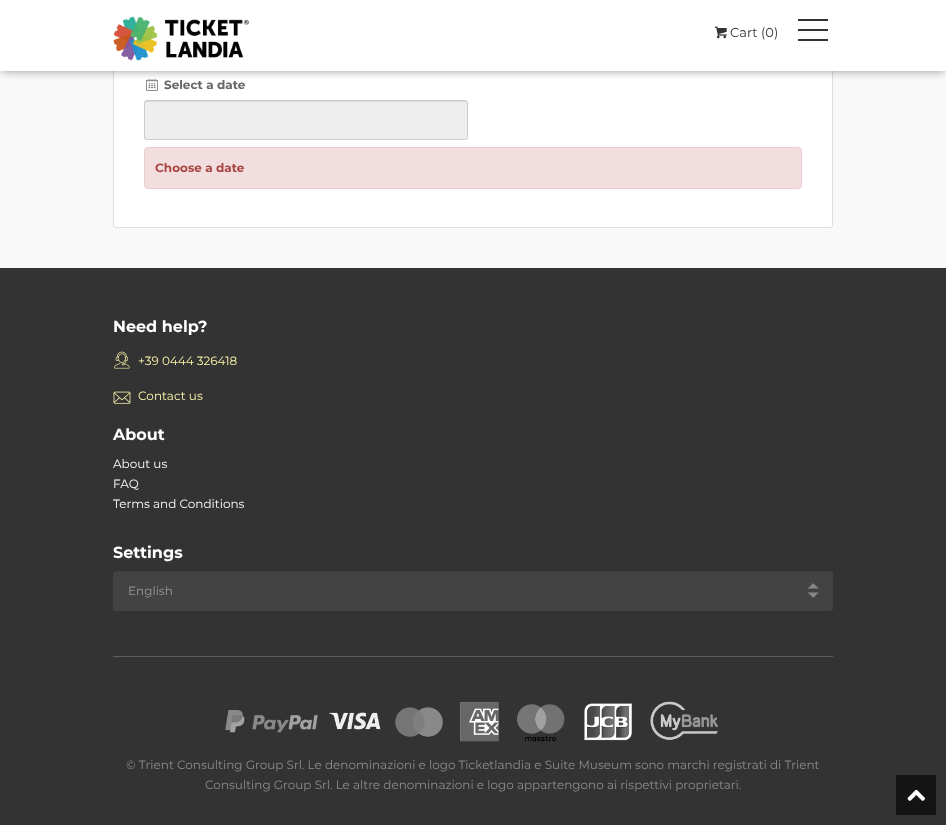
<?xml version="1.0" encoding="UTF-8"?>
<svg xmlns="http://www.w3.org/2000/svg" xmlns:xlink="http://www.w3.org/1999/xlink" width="946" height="825">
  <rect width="100%" height="100%" fill="#f9f9f9" />
  <rect x="113.5" y="-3.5" width="719" height="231" rx="2.5" fill="#ffffff" stroke="#dddddd" />
  <image x="146" y="78" width="12" height="13" xlink:href="image3.png" />
  <rect x="2" y="4" width="942" height="67" fill="#000000" fill-opacity="0.41" filter="blur(5px)" />
  <rect width="946" height="71" fill="#ffffff" />
  <image x="113" y="16" width="136" height="45" xlink:href="image1.png" />
  <image x="715" y="26" width="12" height="13" xlink:href="image2.png" />
  <rect x="798" y="29" width="30" height="2" fill="#333333" />
  <rect x="798" y="19" width="30" height="2" fill="#333333" />
  <rect x="798" y="39" width="30" height="2" fill="#333333" />
  <rect x="144" y="100" width="324" height="40" rx="3" fill="#eeeeee" />
  <path d="M 147 102 h 318 c 1 0 2 1 2 2 c 0 -1 0 -3 -2 -3 h -319 l -1 1 v 2 c 0 -1 1 -2 2 -2 z" fill="#dcdcdc" />
  <rect x="144.5" y="100.5" width="323" height="39" rx="2.5" fill="none" stroke="#cccccc" />
  <rect x="144.5" y="147.5" width="657" height="41" rx="3.5" fill="#f2dede" stroke="#ebccd1" />
  <rect y="268" width="946" height="557" fill="#333333" />
  <image x="114" y="351" width="16" height="18" xlink:href="image4.png" />
  <image x="113" y="391" width="18" height="13" xlink:href="image5.png" />
  <rect x="113" y="571" width="720" height="40" rx="3" fill="#434343" />
  <image x="807" y="583" width="12" height="15" xlink:href="image6.png" />
  <rect x="113" y="571" width="720" height="1" fill="#000000" fill-opacity="0.07" />
  <rect x="113" y="656" width="720" height="1" fill="#5c5c5c" />
  <image x="225" y="701" width="493" height="41" xlink:href="image7.png" />
  <rect x="896" y="775" width="40" height="40" fill="#141414" />
  <image x="907" y="789" width="18" height="12" xlink:href="image8.png" />
  <text x="730" y="37" style="font-family: Montserrat; font-size: 13px; fill: #333333">Cart (0)</text>
  <text x="164" y="89" style="font-family: Montserrat; font-size: 12px; font-weight: bold; fill: #666666">Select a date</text>
  <text x="155" y="172" style="font-family: Montserrat; font-size: 12px; font-weight: bold; fill: #a94442">Choose a date</text>
  <text x="113" y="332" style="font-family: Montserrat; font-size: 16px; font-weight: bold; fill: #ffffff">Need help?</text>
  <text x="138" y="365" style="font-family: Montserrat; font-size: 12px; fill: #fdf7ac">+39 0444 326418</text>
  <text x="138" y="400" style="font-family: Montserrat; font-size: 12px; fill: #fdf7ac">Contact us</text>
  <text x="113" y="440" style="font-family: Montserrat; font-size: 16px; font-weight: bold; fill: #ffffff">About</text>
  <text x="113" y="468" style="font-family: Montserrat; font-size: 12px; fill: #ffffff">About us</text>
  <text x="113" y="488" style="font-family: Montserrat; font-size: 12px; fill: #ffffff">FAQ</text>
  <text x="113" y="508" style="font-family: Montserrat; font-size: 12px; fill: #ffffff">Terms and Conditions</text>
  <text x="113" y="558" style="font-family: Montserrat; font-size: 16px; font-weight: bold; fill: #ffffff">Settings</text>
  <text x="128" y="595" style="font-family: Montserrat; font-size: 12px; fill: #999999">English</text>
  <text x="126" y="769" style="font-family: Montserrat; font-size: 12px; fill: #8c8c8c">© Trient Consulting Group Srl. Le denominazioni e logo Ticketlandia e Suite Museum sono marchi registrati di Trient</text>
  <text x="205" y="789" style="font-family: Montserrat; font-size: 12px; fill: #8c8c8c">Consulting Group Srl. Le altre denominazioni e logo appartengono ai rispettivi proprietari.</text>
</svg>
